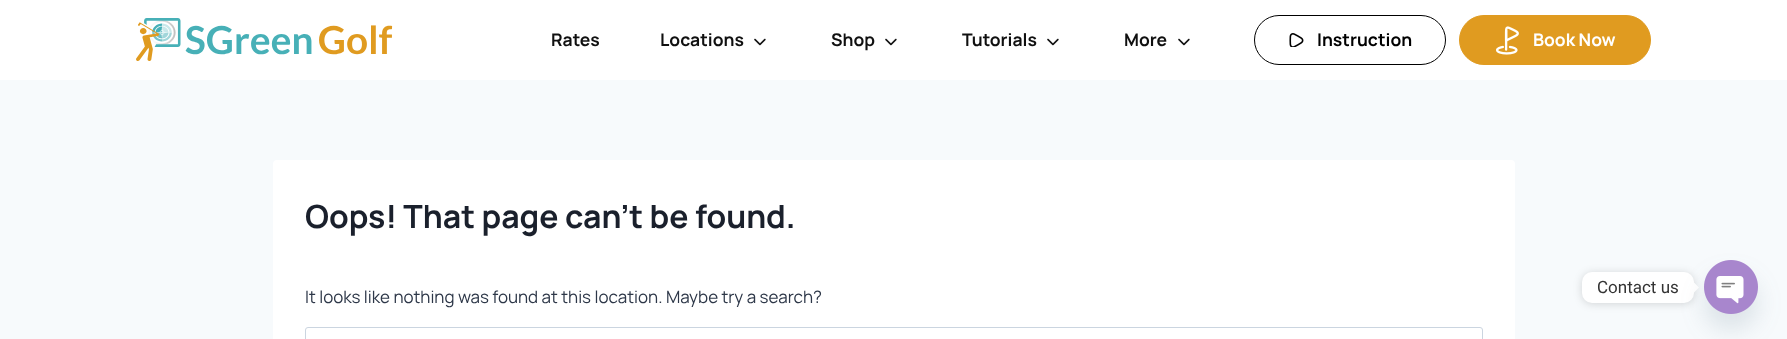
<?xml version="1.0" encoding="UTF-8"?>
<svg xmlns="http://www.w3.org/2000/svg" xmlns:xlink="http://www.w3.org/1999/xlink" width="1787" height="339">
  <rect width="100%" height="100%" fill="#f7fafc" />
  <rect width="1787" height="80" fill="#ffffff" />
  <image x="136" y="18" width="257" height="43" xlink:href="image1.png" />
  <image x="754" y="38" width="12" height="8" xlink:href="image2.png" />
  <image x="885" y="38" width="12" height="8" xlink:href="image2.png" />
  <image x="1047" y="38" width="12" height="8" xlink:href="image2.png" />
  <image x="1178" y="38" width="12" height="8" xlink:href="image2.png" />
  <rect x="1254.5" y="15.5" width="191" height="49" rx="24.5" fill="none" stroke="#000000" />
  <image x="1289" y="33" width="15" height="14" xlink:href="image3.png" />
  <rect x="1459.5" y="15.5" width="191" height="49" rx="24.5" fill="#e09b20" stroke="#e09b20" />
  <image x="1496" y="26" width="23" height="29" xlink:href="image4.png" />
  <rect x="273" y="160" width="1242" height="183" rx="4" fill="#ffffff" />
  <rect x="305.5" y="327.5" width="1177" height="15" rx="2.5" fill="none" stroke="#cbd5e0" />
  <rect x="1582" y="273" width="112" height="31" rx="10" fill="#000000" fill-opacity="0.15" filter="blur(4px)" />
  <rect x="1582" y="272" width="112" height="31" rx="10" fill="#ffffff" />
  <path d="M 1694 292.5 v -10 l 5 5 z" fill="#ffffff" />
  <rect x="1704" y="276" width="54" height="54" rx="27" fill="#49687e" fill-opacity="0.16" filter="blur(12px)" />
  <image x="1704" y="260" width="54" height="54" xlink:href="image5.png" />
  <text x="551" y="46" style="font-family: Manrope; font-size: 17.5px; font-weight: 200; fill: #101010">Rates</text>
  <text x="660" y="46" style="font-family: Manrope; font-size: 17.5px; font-weight: 200; fill: #101010">Locations</text>
  <text x="831" y="46" style="font-family: Manrope; font-size: 17.5px; font-weight: 200; fill: #101010">Shop</text>
  <text x="962" y="46" style="font-family: Manrope; font-size: 17.5px; font-weight: 200; fill: #101010">Tutorials</text>
  <text x="1124" y="46" style="font-family: Manrope; font-size: 17.5px; font-weight: 200; fill: #101010">More</text>
  <text x="1317" y="46" style="font-family: Manrope; font-size: 17.5px; font-weight: 200; fill: #000000">Instruction</text>
  <text x="1533" y="46" style="font-family: Manrope; font-size: 17.5px; font-weight: 200; fill: #ffffff">Book Now</text>
  <text x="305" y="228" style="font-family: Manrope; font-size: 32px; font-weight: 200; fill: #1a202c">Oops! That page can’t be found.</text>
  <text x="305" y="303" style="font-family: 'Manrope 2'; font-size: 17px; font-weight: 200; fill: #2d3748">It looks like nothing was found at this location. Maybe try a search?</text>
  <text x="1597" y="293" style="font-family: Roboto; font-size: 17px; fill: #333333">Contact us</text>
</svg>
